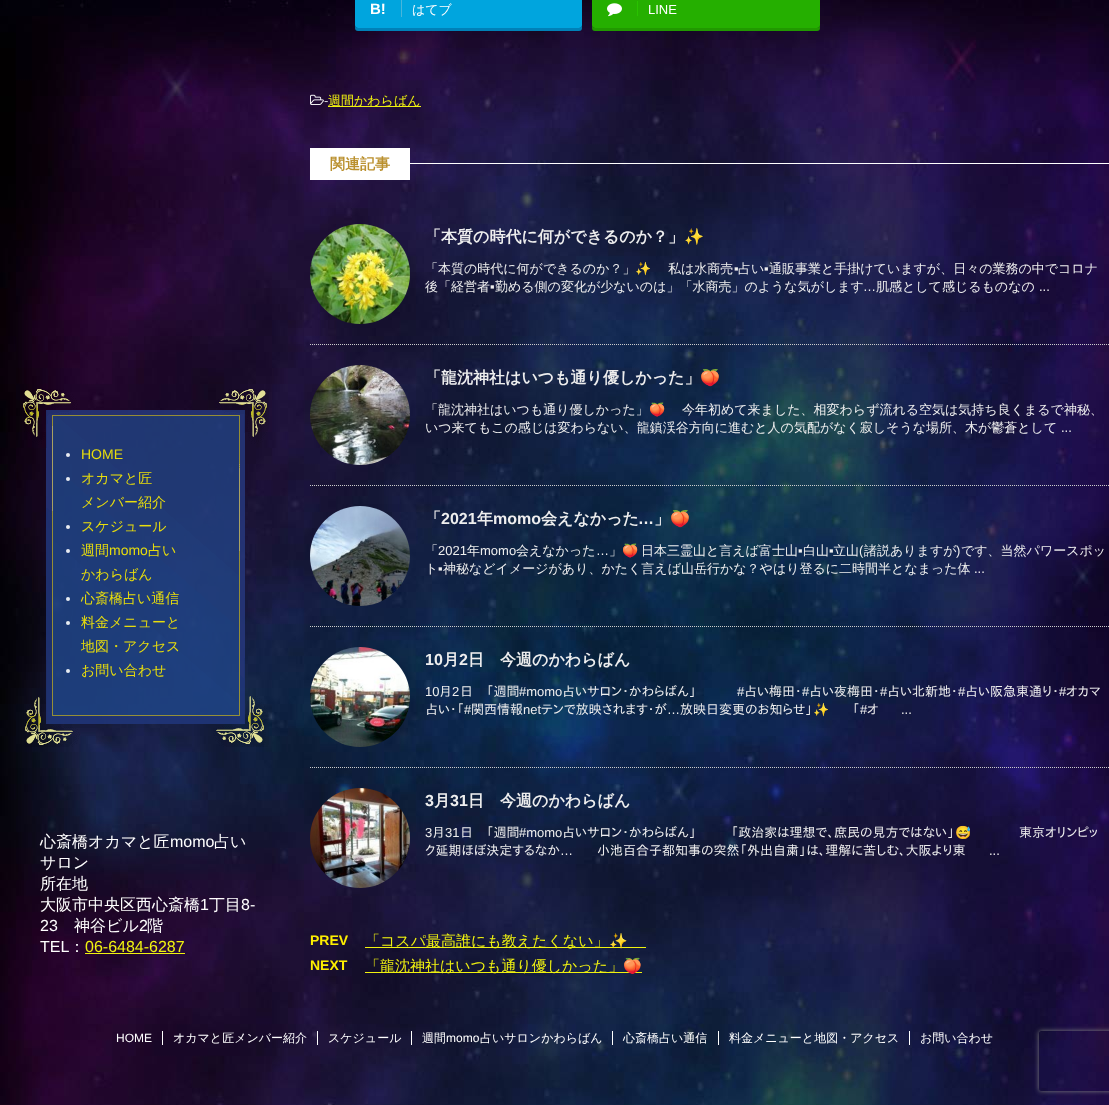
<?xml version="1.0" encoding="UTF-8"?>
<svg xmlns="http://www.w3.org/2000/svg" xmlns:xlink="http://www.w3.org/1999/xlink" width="1109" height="1105">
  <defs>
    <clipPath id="clip1"><path d="M 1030 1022 h 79 v 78 h -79 z m 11 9 h 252 c 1 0 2 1 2 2 v 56 c 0 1 -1 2 -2 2 h -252 c -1 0 -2 -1 -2 -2 v -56 c 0 -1 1 -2 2 -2 z" clip-rule="evenodd" /></clipPath>
  </defs>
  <rect width="100%" height="100%" fill="#ffffff" />
  <image x="0" y="0" width="1109" height="1105" xlink:href="image1.png" />
  <image x="23" y="389" width="246" height="358" xlink:href="image2.png" />
  <circle cx="68" cy="455" r="2" fill="#e9ebf1" />
  <circle cx="68" cy="479" r="2" fill="#ffffff" fill-opacity="0.9" />
  <circle cx="68" cy="527" r="2" fill="#e9ebf1" />
  <circle cx="68" cy="551" r="2" fill="#e9ebf2" />
  <circle cx="68" cy="599" r="2" fill="#e8ecf2" />
  <circle cx="68" cy="623" r="2" fill="#e8ecf1" />
  <circle cx="68" cy="671" r="2" fill="#e8ecf2" />
  <rect x="85" y="953" width="100" height="1" fill="#f0f210" />
  <path d="M 355 25 v 3 c 0 2 1 3 3 3 h 221 c 2 0 3 -1 3 -3 v -3 c 0 2 -1 3 -3 3 h -221 c -2 0 -3 -1 -3 -3 z" fill="#0081b8" />
  <rect x="355" y="-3" width="227" height="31" rx="3" fill="#00a5de" />
  <rect x="401" width="1" height="17" fill="#48b6db" />
  <path d="M 592 25 v 3 c 0 2 1 3 3 3 h 222 c 2 0 3 -1 3 -3 v -3 c 0 2 -1 3 -3 3 h -222 c -2 0 -3 -1 -3 -3 z" fill="#219900" />
  <rect x="592" y="-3" width="228" height="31" rx="3" fill="#25af00" />
  <rect x="637" y="1" width="1" height="15" fill="#29c200" />
  <image x="607" y="3" width="15" height="14" xlink:href="image3.png" />
  <image x="310" y="94" width="14" height="11" xlink:href="image4.png" />
  <rect x="328" y="106" width="93" height="1" fill="#f0f210" />
  <rect x="410" y="163" width="699" height="1" fill="#ffffff" />
  <rect x="310" y="148" width="100" height="32" fill="#ffffff" />
  <path d="M 310 344.5 h 799" fill="none" stroke="#cccccc" stroke-dasharray="1 1" />
  <image x="310" y="224" width="100" height="100" xlink:href="image5.png" />
  <path d="M 310 485.5 h 799" fill="none" stroke="#cccccc" stroke-dasharray="1 1" />
  <image x="310" y="365" width="100" height="100" xlink:href="image6.png" />
  <path d="M 310 626.5 h 799" fill="none" stroke="#cccccc" stroke-dasharray="1 1" />
  <image x="310" y="506" width="100" height="100" xlink:href="image7.png" />
  <path d="M 310 767.5 h 799" fill="none" stroke="#cccccc" stroke-dasharray="1 1" />
  <image x="310" y="647" width="100" height="100" xlink:href="image8.png" />
  <image x="310" y="788" width="100" height="100" xlink:href="image9.png" />
  <rect x="365" y="947" width="281" height="1" fill="#f0f210" />
  <rect x="365" y="972" width="277" height="1" fill="#f0f210" />
  <rect x="162" y="1031" width="1" height="14" fill="#ffffff" />
  <rect x="317" y="1031" width="1" height="14" fill="#ffffff" />
  <rect x="411" y="1031" width="1" height="14" fill="#ffffff" />
  <rect x="612" y="1031" width="1" height="14" fill="#ffffff" />
  <rect x="718" y="1031" width="1" height="14" fill="#ffffff" />
  <rect x="909" y="1031" width="1" height="14" fill="#ffffff" />
  <g clip-path="url(#clip1)">
    <rect x="1039" y="1031" width="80" height="60" rx="2" fill="#808080" filter="blur(2.5px)" />
  </g>
  <text x="81" y="459" style="font-family: Liberation Sans; font-size: 14px; fill: #e8dd0c">HOME</text>
  <text x="81" y="483" style="font-family: WenQuanYi Zen Hei; font-size: 14px; font-weight: 500; fill: #e8dd0c">オカマと匠</text>
  <text x="81" y="507" style="font-family: WenQuanYi Zen Hei; font-size: 14px; font-weight: 500; fill: #e8dd0c">メンバー紹介</text>
  <text x="81" y="531" style="font-family: WenQuanYi Zen Hei; font-size: 14px; font-weight: 500; fill: #e8dd0c">スケジュール</text>
  <text x="81" y="555" style="font-family: WenQuanYi Zen Hei; font-size: 14px; font-weight: 500; fill: #e8dd0c">週間</text>
  <text x="109" y="555" style="font-family: Liberation Sans; font-size: 14px; fill: #e8dd0c">momo</text>
  <text x="148" y="555" style="font-family: WenQuanYi Zen Hei; font-size: 14px; font-weight: 500; fill: #e8dd0c">占い</text>
  <text x="81" y="579" style="font-family: WenQuanYi Zen Hei; font-size: 14px; font-weight: 500; fill: #e8dd0c">かわらばん</text>
  <text x="81" y="603" style="font-family: WenQuanYi Zen Hei; font-size: 14px; font-weight: 500; fill: #e8dd0c">心斎橋占い通信</text>
  <text x="81" y="627" style="font-family: WenQuanYi Zen Hei; font-size: 14px; font-weight: 500; fill: #e8dd0c">料金メニューと</text>
  <text x="81" y="651" style="font-family: WenQuanYi Zen Hei; font-size: 14px; font-weight: 500; fill: #e8dd0c">地図・アクセス</text>
  <text x="81" y="675" style="font-family: WenQuanYi Zen Hei; font-size: 14px; font-weight: 500; fill: #e8dd0c">お問い合わせ</text>
  <text x="40" y="847" style="font-family: WenQuanYi Zen Hei; font-size: 16px; font-weight: 500; fill: #ffffff">心斎橋オカマと匠</text>
  <text x="170" y="847" style="font-family: Liberation Sans; font-size: 16px; fill: #ffffff">momo</text>
  <text x="214" y="847" style="font-family: WenQuanYi Zen Hei; font-size: 16px; font-weight: 500; fill: #ffffff">占い</text>
  <text x="40" y="868" style="font-family: WenQuanYi Zen Hei; font-size: 16px; font-weight: 500; fill: #ffffff">サロン</text>
  <text x="40" y="889" style="font-family: WenQuanYi Zen Hei; font-size: 16px; font-weight: 500; fill: #ffffff">所在地</text>
  <text x="40" y="910" style="font-family: WenQuanYi Zen Hei; font-size: 16px; font-weight: 500; fill: #ffffff">大阪市中央区西心斎橋</text>
  <text x="200" y="910" style="font-family: Liberation Sans; font-size: 16px; fill: #ffffff">1</text>
  <text x="209" y="910" style="font-family: WenQuanYi Zen Hei; font-size: 16px; font-weight: 500; fill: #ffffff">丁目</text>
  <text x="241" y="910" style="font-family: Liberation Sans; font-size: 16px; fill: #ffffff">8-</text>
  <text x="40" y="931" style="font-family: Liberation Sans; font-size: 16px; fill: #ffffff">23</text>
  <text x="74" y="931" style="font-family: WenQuanYi Zen Hei; font-size: 16px; font-weight: 500; fill: #ffffff">神谷ビル</text>
  <text x="139" y="931" style="font-family: Liberation Sans; font-size: 16px; fill: #ffffff">2</text>
  <text x="147" y="931" style="font-family: WenQuanYi Zen Hei; font-size: 16px; font-weight: 500; fill: #ffffff">階</text>
  <text x="40" y="952" style="font-family: Liberation Sans; font-size: 16px; fill: #ffffff">TEL</text>
  <text x="69" y="952" style="font-family: WenQuanYi Zen Hei; font-size: 16px; font-weight: 500; fill: #ffffff">：</text>
  <text x="85" y="952" style="font-family: Liberation Sans; font-size: 16px; fill: #f0f210">06-6484-6287</text>
  <text x="370" y="14" style="font-family: Liberation Sans; font-size: 15px; font-weight: bold; fill: #ffffff">B!</text>
  <text x="412" y="14" style="font-family: WenQuanYi Zen Hei; font-size: 13px; font-weight: 500; fill: #ffffff">はてブ</text>
  <text x="648" y="14" style="font-family: Liberation Sans; font-size: 13px; fill: #ffffff">LINE</text>
  <text x="324" y="105" style="font-family: Liberation Sans; font-size: 13px; fill: #dbdbdb">-</text>
  <text x="328" y="105" style="font-family: WenQuanYi Zen Hei; font-size: 13px; font-weight: 500; fill: #f0f210">週間かわらばん</text>
  <text x="330" y="169" style="font-family: WenQuanYi Zen Hei; font-size: 15px; font-weight: bold; fill: #ba902e">関連記事</text>
  <text x="425" y="242" style="font-family: WenQuanYi Zen Hei; font-size: 16px; font-weight: bold; fill: #eeeeee">「本質の時代に何ができるのか？」</text>
  <text x="684" y="242" style="font-family: Noto Color Emoji; font-size: 16px; font-weight: bold; fill: #eeeeee">✨</text>
  <text x="425" y="273" style="font-family: WenQuanYi Zen Hei; font-size: 13px; font-weight: 500; fill: #eeeeee">「本質の時代に何ができるのか？」</text>
  <text x="635" y="273" style="font-family: Noto Color Emoji; font-size: 13px; fill: #eeeeee">✨</text>
  <text x="668" y="273" style="font-family: WenQuanYi Zen Hei; font-size: 13px; font-weight: 500; fill: #eeeeee">私は水商売</text>
  <text x="734" y="273" style="font-family: Liberation Sans; font-size: 13px; fill: #eeeeee">▪</text>
  <text x="738" y="273" style="font-family: WenQuanYi Zen Hei; font-size: 13px; font-weight: 500; fill: #eeeeee">占い</text>
  <text x="764" y="273" style="font-family: Liberation Sans; font-size: 13px; fill: #eeeeee">▪</text>
  <text x="769" y="273" style="font-family: WenQuanYi Zen Hei; font-size: 13px; font-weight: 500; fill: #eeeeee">通販事業と手掛けていますが、日々の業務の中でコロナ</text>
  <text x="425" y="291" style="font-family: WenQuanYi Zen Hei; font-size: 13px; font-weight: 500; fill: #eeeeee">後「経営者</text>
  <text x="490" y="291" style="font-family: Liberation Sans; font-size: 13px; fill: #eeeeee">▪</text>
  <text x="495" y="291" style="font-family: WenQuanYi Zen Hei; font-size: 13px; font-weight: 500; fill: #eeeeee">勤める側の変化が少ないのは」「水商売」のような気がします</text>
  <text x="876" y="291" style="font-family: WenQuanYi Zen Hei; font-size: 13px; font-weight: 500; fill: #eeeeee">肌感として感じるものなの</text>
  <text x="863" y="291" style="font-family: Liberation Sans; font-size: 13px; fill: #eeeeee">…</text>
  <text x="1039" y="291" style="font-family: Liberation Sans; font-size: 13px; fill: #eeeeee">...</text>
  <text x="425" y="383" style="font-family: WenQuanYi Zen Hei; font-size: 16px; font-weight: bold; fill: #eeeeee">「龍沈神社はいつも通り優しかった」</text>
  <text x="700" y="383" style="font-family: Noto Color Emoji; font-size: 16px; font-weight: bold; fill: #eeeeee">🍑</text>
  <text x="425" y="414" style="font-family: WenQuanYi Zen Hei; font-size: 13px; font-weight: 500; fill: #eeeeee">「龍沈神社はいつも通り優しかった」</text>
  <text x="649" y="414" style="font-family: Noto Color Emoji; font-size: 13px; fill: #eeeeee">🍑</text>
  <text x="682" y="414" style="font-family: WenQuanYi Zen Hei; font-size: 13px; font-weight: 500; fill: #eeeeee">今年初めて来ました、相変わらず流れる空気は気持ち良くまるで神秘、</text>
  <text x="425" y="432" style="font-family: WenQuanYi Zen Hei; font-size: 13px; font-weight: 500; fill: #eeeeee">いつ来てもこの感じは変わらない、龍鎮渓谷方向に進むと人の気配がなく寂しそうな場所、木が鬱蒼として</text>
  <text x="1061" y="432" style="font-family: Liberation Sans; font-size: 13px; fill: #eeeeee">...</text>
  <text x="425" y="524" style="font-family: WenQuanYi Zen Hei; font-size: 16px; font-weight: bold; fill: #eeeeee">「</text>
  <text x="441" y="524" style="font-family: Liberation Sans; font-size: 16px; font-weight: bold; fill: #eeeeee">2021</text>
  <text x="477" y="524" style="font-family: WenQuanYi Zen Hei; font-size: 16px; font-weight: bold; fill: #eeeeee">年</text>
  <text x="493" y="524" style="font-family: Liberation Sans; font-size: 16px; font-weight: bold; fill: #eeeeee">momo</text>
  <text x="541" y="524" style="font-family: WenQuanYi Zen Hei; font-size: 16px; font-weight: bold; fill: #eeeeee">会えなかった</text>
  <text x="638" y="524" style="font-family: Liberation Sans; font-size: 16px; font-weight: bold; fill: #eeeeee">…</text>
  <text x="654" y="524" style="font-family: WenQuanYi Zen Hei; font-size: 16px; font-weight: bold; fill: #eeeeee">」</text>
  <text x="670" y="524" style="font-family: Noto Color Emoji; font-size: 16px; font-weight: bold; fill: #eeeeee">🍑</text>
  <text x="425" y="555" style="font-family: WenQuanYi Zen Hei; font-size: 13px; font-weight: 500; fill: #eeeeee">「</text>
  <text x="438" y="555" style="font-family: Liberation Sans; font-size: 13px; fill: #eeeeee">2021</text>
  <text x="467" y="555" style="font-family: WenQuanYi Zen Hei; font-size: 13px; font-weight: 500; fill: #eeeeee">年</text>
  <text x="480" y="555" style="font-family: Liberation Sans; font-size: 13px; fill: #eeeeee">momo</text>
  <text x="516" y="555" style="font-family: WenQuanYi Zen Hei; font-size: 13px; font-weight: 500; fill: #eeeeee">会えなかった</text>
  <text x="609" y="555" style="font-family: WenQuanYi Zen Hei; font-size: 13px; font-weight: 500; fill: #eeeeee">」</text>
  <text x="622" y="555" style="font-family: Noto Color Emoji; font-size: 13px; fill: #eeeeee">🍑</text>
  <text x="641" y="555" style="font-family: WenQuanYi Zen Hei; font-size: 13px; font-weight: 500; fill: #eeeeee">日本三霊山と言えば富士山</text>
  <text x="798" y="555" style="font-family: Liberation Sans; font-size: 13px; fill: #eeeeee">▪</text>
  <text x="803" y="555" style="font-family: WenQuanYi Zen Hei; font-size: 13px; font-weight: 500; fill: #eeeeee">白山</text>
  <text x="829" y="555" style="font-family: Liberation Sans; font-size: 13px; fill: #eeeeee">▪</text>
  <text x="833" y="555" style="font-family: WenQuanYi Zen Hei; font-size: 13px; font-weight: 500; fill: #eeeeee">立山</text>
  <text x="859" y="555" style="font-family: Liberation Sans; font-size: 13px; fill: #eeeeee">(</text>
  <text x="864" y="555" style="font-family: WenQuanYi Zen Hei; font-size: 13px; font-weight: 500; fill: #eeeeee">諸説ありますが</text>
  <text x="956" y="555" style="font-family: Liberation Sans; font-size: 13px; fill: #eeeeee">)</text>
  <text x="961" y="555" style="font-family: WenQuanYi Zen Hei; font-size: 13px; font-weight: 500; fill: #eeeeee">です、当然パワースポッ</text>
  <text x="596" y="555" style="font-family: Liberation Sans; font-size: 13px; fill: #eeeeee">…</text>
  <text x="425" y="573" style="font-family: WenQuanYi Zen Hei; font-size: 13px; font-weight: 500; fill: #eeeeee">ト</text>
  <text x="438" y="573" style="font-family: Liberation Sans; font-size: 13px; fill: #eeeeee">▪</text>
  <text x="443" y="573" style="font-family: WenQuanYi Zen Hei; font-size: 13px; font-weight: 500; fill: #eeeeee">神秘などイメージがあり、かたく言えば山岳行かな？やはり登るに二時間半となまった体</text>
  <text x="974" y="573" style="font-family: Liberation Sans; font-size: 13px; fill: #eeeeee">...</text>
  <text x="425" y="665" style="font-family: Liberation Sans; font-size: 16px; font-weight: bold; fill: #eeeeee">10</text>
  <text x="443" y="665" style="font-family: WenQuanYi Zen Hei; font-size: 16px; font-weight: bold; fill: #eeeeee">月</text>
  <text x="459" y="665" style="font-family: Liberation Sans; font-size: 16px; font-weight: bold; fill: #eeeeee">2</text>
  <text x="468" y="665" style="font-family: WenQuanYi Zen Hei; font-size: 16px; font-weight: bold; fill: #eeeeee">日　今週のかわらばん</text>
  <text x="425" y="696" style="font-family: Liberation Sans; font-size: 13px; fill: #eeeeee">10</text>
  <text x="439" y="696" style="font-family: IPAPGothic; font-size: 13px; fill: #eeeeee">月</text>
  <text x="452" y="696" style="font-family: Liberation Sans; font-size: 13px; fill: #eeeeee">2</text>
  <text x="460" y="696" style="font-family: IPAPGothic; font-size: 13px; fill: #eeeeee">日　「週間</text>
  <text x="519" y="696" style="font-family: Liberation Sans; font-size: 13px; fill: #eeeeee">#momo</text>
  <text x="562" y="696" style="font-family: IPAPGothic; font-size: 13px; fill: #eeeeee">占いサロン･かわらばん」</text>
  <text x="737" y="696" style="font-family: Liberation Sans; font-size: 13px; fill: #eeeeee">#</text>
  <text x="744" y="696" style="font-family: IPAPGothic; font-size: 13px; fill: #eeeeee">占い梅田･</text>
  <text x="802" y="696" style="font-family: Liberation Sans; font-size: 13px; fill: #eeeeee">#</text>
  <text x="809" y="696" style="font-family: IPAPGothic; font-size: 13px; fill: #eeeeee">占い夜梅田･</text>
  <text x="880" y="696" style="font-family: Liberation Sans; font-size: 13px; fill: #eeeeee">#</text>
  <text x="887" y="696" style="font-family: IPAPGothic; font-size: 13px; fill: #eeeeee">占い北新地･</text>
  <text x="958" y="696" style="font-family: Liberation Sans; font-size: 13px; fill: #eeeeee">#</text>
  <text x="965" y="696" style="font-family: IPAPGothic; font-size: 13px; fill: #eeeeee">占い阪急東通り･</text>
  <text x="1059" y="696" style="font-family: Liberation Sans; font-size: 13px; fill: #eeeeee">#</text>
  <text x="1066" y="696" style="font-family: IPAPGothic; font-size: 13px; fill: #eeeeee">オカマ</text>
  <text x="425" y="714" style="font-family: IPAPGothic; font-size: 13px; fill: #eeeeee">占い･「</text>
  <text x="464" y="714" style="font-family: Liberation Sans; font-size: 13px; fill: #eeeeee">#</text>
  <text x="471" y="714" style="font-family: IPAPGothic; font-size: 13px; fill: #eeeeee">関西情報</text>
  <text x="523" y="714" style="font-family: Liberation Sans; font-size: 13px; fill: #eeeeee">net</text>
  <text x="541" y="714" style="font-family: IPAPGothic; font-size: 13px; fill: #eeeeee">テンで放映されます･が</text>
  <text x="667" y="714" style="font-family: Liberation Sans; font-size: 13px; fill: #eeeeee">…</text>
  <text x="680" y="714" style="font-family: IPAPGothic; font-size: 13px; fill: #eeeeee">放映日変更のお知らせ」</text>
  <text x="813" y="714" style="font-family: Noto Color Emoji; font-size: 13px; fill: #eeeeee">✨</text>
  <text x="852" y="714" style="font-family: IPAPGothic; font-size: 13px; fill: #eeeeee">「</text>
  <text x="860" y="714" style="font-family: Liberation Sans; font-size: 13px; fill: #eeeeee">#</text>
  <text x="867" y="714" style="font-family: IPAPGothic; font-size: 13px; fill: #eeeeee">オ</text>
  <text x="901" y="714" style="font-family: Liberation Sans; font-size: 13px; fill: #eeeeee">...</text>
  <text x="425" y="806" style="font-family: Liberation Sans; font-size: 16px; font-weight: bold; fill: #eeeeee">3</text>
  <text x="434" y="806" style="font-family: WenQuanYi Zen Hei; font-size: 16px; font-weight: bold; fill: #eeeeee">月</text>
  <text x="450" y="806" style="font-family: Liberation Sans; font-size: 16px; font-weight: bold; fill: #eeeeee">31</text>
  <text x="468" y="806" style="font-family: WenQuanYi Zen Hei; font-size: 16px; font-weight: bold; fill: #eeeeee">日　今週のかわらばん</text>
  <text x="425" y="837" style="font-family: Liberation Sans; font-size: 13px; fill: #eeeeee">3</text>
  <text x="432" y="837" style="font-family: IPAPGothic; font-size: 13px; fill: #eeeeee">月</text>
  <text x="445" y="837" style="font-family: Liberation Sans; font-size: 13px; fill: #eeeeee">31</text>
  <text x="460" y="837" style="font-family: IPAPGothic; font-size: 13px; fill: #eeeeee">日　「週間</text>
  <text x="519" y="837" style="font-family: Liberation Sans; font-size: 13px; fill: #eeeeee">#momo</text>
  <text x="562" y="837" word-spacing="31" style="font-family: IPAPGothic; font-size: 13px; fill: #eeeeee">占いサロン･かわらばん」 「政治家は理想で、庶民の見方ではない」</text>
  <text x="955" y="837" style="font-family: Noto Color Emoji; font-size: 13px; fill: #eeeeee">😅</text>
  <text x="1019" y="837" style="font-family: IPAPGothic; font-size: 13px; fill: #eeeeee">東京オリンピッ</text>
  <text x="425" y="855" style="font-family: IPAPGothic; font-size: 13px; fill: #eeeeee">ク延期ほぼ決定するなか</text>
  <text x="560" y="855" style="font-family: Liberation Sans; font-size: 13px; fill: #eeeeee">…</text>
  <text x="597" y="855" style="font-family: IPAPGothic; font-size: 13px; fill: #eeeeee">小池百合子都知事の突然「外出自粛」は､理解に苦しむ、大阪より東</text>
  <text x="989" y="855" style="font-family: Liberation Sans; font-size: 13px; fill: #eeeeee">...</text>
  <text x="310" y="945" style="font-family: Liberation Sans; font-size: 14px; font-weight: bold; fill: #feef00">PREV</text>
  <text x="365" y="946" style="font-family: WenQuanYi Zen Hei; font-size: 15px; font-weight: 500; fill: #f0f210">「コスパ最高誰にも教えたくない」</text>
  <text x="609" y="946" style="font-family: Noto Color Emoji; font-size: 15px; fill: #f0f210">✨</text>
  <text x="310" y="970" style="font-family: Liberation Sans; font-size: 14px; font-weight: bold; fill: #feef00">NEXT</text>
  <text x="365" y="971" style="font-family: WenQuanYi Zen Hei; font-size: 15px; font-weight: 500; fill: #f0f210">「龍沈神社はいつも通り優しかった」</text>
  <text x="623" y="971" style="font-family: Noto Color Emoji; font-size: 15px; fill: #f0f210">🍑</text>
  <text x="116" y="1042" style="font-family: Liberation Sans; font-size: 12px; fill: #ffffff">HOME</text>
  <text x="173" y="1042" style="font-family: WenQuanYi Zen Hei; font-size: 12px; font-weight: 500; fill: #ffffff">オカマと匠メンバー紹介</text>
  <text x="328" y="1042" style="font-family: WenQuanYi Zen Hei; font-size: 12px; font-weight: 500; fill: #ffffff">スケジュール</text>
  <text x="422" y="1042" style="font-family: WenQuanYi Zen Hei; font-size: 12px; font-weight: 500; fill: #ffffff">週間</text>
  <text x="446" y="1042" style="font-family: Liberation Sans; font-size: 12px; fill: #ffffff">momo</text>
  <text x="480" y="1042" style="font-family: WenQuanYi Zen Hei; font-size: 12px; font-weight: 500; fill: #ffffff">占いサロンかわらばん</text>
  <text x="623" y="1042" style="font-family: WenQuanYi Zen Hei; font-size: 12px; font-weight: 500; fill: #ffffff">心斎橋占い通信</text>
  <text x="729" y="1042" style="font-family: WenQuanYi Zen Hei; font-size: 12px; font-weight: 500; fill: #ffffff">料金メニューと地図・アクセス</text>
  <text x="920" y="1042" style="font-family: WenQuanYi Zen Hei; font-size: 12px; font-weight: 500; fill: #ffffff">お問い合わせ</text>
</svg>
